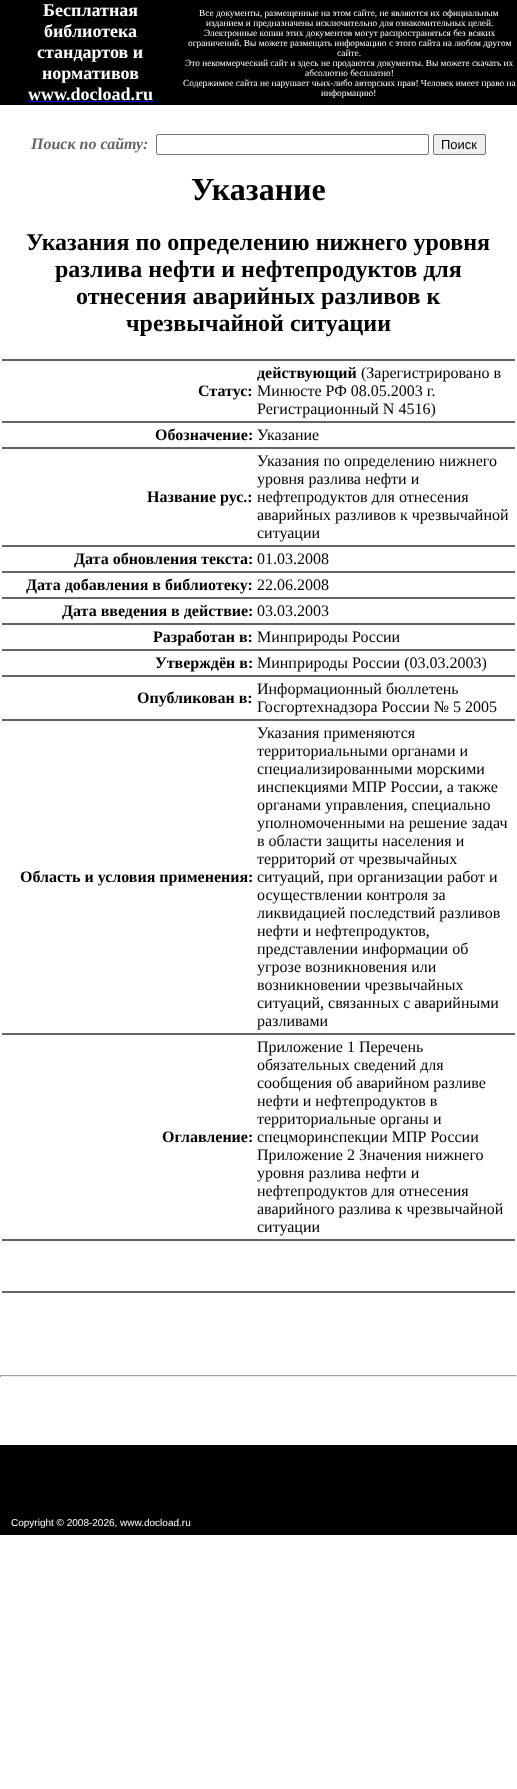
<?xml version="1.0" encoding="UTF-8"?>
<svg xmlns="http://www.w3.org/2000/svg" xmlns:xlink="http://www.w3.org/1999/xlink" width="517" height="1789">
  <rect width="100%" height="100%" fill="#ffffff" />
  <rect width="517" height="105" fill="#000000" />
  <rect x="28" y="101" width="125" height="1" fill="#0000ee" />
  <rect x="156.5" y="134.5" width="272" height="20" rx="1.5" fill="none" stroke="#767676" />
  <rect x="433.5" y="134.5" width="52" height="20" rx="1.5" fill="#efefef" stroke="#767676" />
  <rect x="2" y="359" width="513" height="2" fill="#646464" />
  <rect x="2" y="421" width="513" height="2" fill="#646464" />
  <rect x="2" y="447" width="513" height="2" fill="#646464" />
  <rect x="2" y="545" width="513" height="2" fill="#646464" />
  <rect x="2" y="571" width="513" height="2" fill="#646464" />
  <rect x="2" y="597" width="513" height="2" fill="#646464" />
  <rect x="2" y="623" width="513" height="2" fill="#646464" />
  <rect x="2" y="649" width="513" height="2" fill="#646464" />
  <rect x="2" y="675" width="513" height="2" fill="#646464" />
  <rect x="2" y="719" width="513" height="2" fill="#646464" />
  <rect x="2" y="1033" width="513" height="2" fill="#646464" />
  <rect x="2" y="1239" width="513" height="2" fill="#646464" />
  <rect x="2" y="1291" width="513" height="2" fill="#646464" />
  <rect y="1375" width="517" height="1" fill="#9f9f9f" />
  <rect x="516" y="1375" width="1" height="2" fill="#eeeeee" />
  <rect y="1376" width="517" height="1" fill="#eeeeee" />
  <rect y="1375" width="1" height="2" fill="#9f9f9f" />
  <rect y="1445" width="517" height="90" fill="#000000" />
  <text x="43" y="16" style="font-family: Liberation Serif; font-size: 18px; font-weight: bold; fill: #ffffff">Бесплатная</text>
  <text x="44" y="37" style="font-family: Liberation Serif; font-size: 18px; font-weight: bold; fill: #ffffff">библиотека</text>
  <text x="37" y="58" style="font-family: Liberation Serif; font-size: 18px; font-weight: bold; fill: #ffffff">стандартов и</text>
  <text x="42" y="79" style="font-family: Liberation Serif; font-size: 18px; font-weight: bold; fill: #ffffff">нормативов</text>
  <text x="28" y="100" style="font-family: Liberation Serif; font-size: 18px; font-weight: bold; fill: #ffffff">www.docload.ru</text>
  <text x="199" y="16" style="font-family: Liberation Serif; font-size: 9.35px; fill: #ffffff">Все документы, размещенные на этом сайте, не являются их официальным</text>
  <text x="206" y="26" style="font-family: Liberation Serif; font-size: 9.35px; fill: #ffffff">изданием и предназначены исключительно для ознакомительных целей.</text>
  <text x="204" y="36" style="font-family: Liberation Serif; font-size: 9.35px; fill: #ffffff">Электронные копии этих документов могут распространяться без всяких</text>
  <text x="188" y="46" style="font-family: Liberation Serif; font-size: 9.35px; fill: #ffffff">ограничений. Вы можете размещать информацию с этого сайта на любом другом</text>
  <text x="337" y="56" style="font-family: Liberation Serif; font-size: 9.35px; fill: #ffffff">сайте.</text>
  <text x="185" y="66" style="font-family: Liberation Serif; font-size: 9.35px; fill: #ffffff">Это некоммерческий сайт и здесь не продаются документы. Вы можете скачать их</text>
  <text x="305" y="76" style="font-family: Liberation Serif; font-size: 9.35px; fill: #ffffff">абсолютно бесплатно!</text>
  <text x="183" y="86" style="font-family: Liberation Serif; font-size: 9.35px; fill: #ffffff">Содержимое сайта не нарушает чьих-либо авторских прав! Человек имеет право на</text>
  <text x="321" y="96" style="font-family: Liberation Serif; font-size: 9.35px; fill: #ffffff">информацию!</text>
  <text x="31" y="149" style="font-family: Liberation Serif; font-size: 16px; font-weight: bold; font-style: italic; fill: #666666">Поиск по сайту:</text>
  <text x="441" y="149" style="font-family: Liberation Sans; font-size: 13px; fill: #000000">Поиск</text>
  <text x="191" y="200" style="font-family: Liberation Serif; font-size: 32px; font-weight: bold; fill: #000000">Указание</text>
  <text x="26" y="250" style="font-family: Liberation Serif; font-size: 24px; font-weight: bold; fill: #000000">Указания по определению нижнего уровня</text>
  <text x="55" y="277" style="font-family: Liberation Serif; font-size: 24px; font-weight: bold; fill: #000000">разлива нефти и нефтепродуктов для</text>
  <text x="76" y="304" style="font-family: Liberation Serif; font-size: 24px; font-weight: bold; fill: #000000">отнесения аварийных разливов к</text>
  <text x="126" y="331" style="font-family: Liberation Serif; font-size: 24px; font-weight: bold; fill: #000000">чрезвычайной ситуации</text>
  <text x="198" y="396" style="font-family: Liberation Serif; font-size: 16px; font-weight: bold; fill: #000000">Статус:</text>
  <text x="257" y="378" style="font-family: Liberation Serif; font-size: 16px; font-weight: bold; fill: #000000">действующий</text>
  <text x="361" y="378" style="font-family: Liberation Serif; font-size: 16px; fill: #000000">(Зарегистрировано в</text>
  <text x="257" y="396" style="font-family: Liberation Serif; font-size: 16px; fill: #000000">Минюсте РФ 08.05.2003 г.</text>
  <text x="257" y="414" style="font-family: Liberation Serif; font-size: 16px; fill: #000000">Регистрационный N 4516)</text>
  <text x="155" y="440" style="font-family: Liberation Serif; font-size: 16px; font-weight: bold; fill: #000000">Обозначение:</text>
  <text x="257" y="440" style="font-family: Liberation Serif; font-size: 16px; fill: #000000">Указание</text>
  <text x="147" y="502" style="font-family: Liberation Serif; font-size: 16px; font-weight: bold; fill: #000000">Название рус.:</text>
  <text x="257" y="466" style="font-family: Liberation Serif; font-size: 16px; fill: #000000">Указания по определению нижнего</text>
  <text x="257" y="484" style="font-family: Liberation Serif; font-size: 16px; fill: #000000">уровня разлива нефти и</text>
  <text x="257" y="502" style="font-family: Liberation Serif; font-size: 16px; fill: #000000">нефтепродуктов для отнесения</text>
  <text x="257" y="520" style="font-family: Liberation Serif; font-size: 16px; fill: #000000">аварийных разливов к чрезвычайной</text>
  <text x="257" y="538" style="font-family: Liberation Serif; font-size: 16px; fill: #000000">ситуации</text>
  <text x="74" y="564" style="font-family: Liberation Serif; font-size: 16px; font-weight: bold; fill: #000000">Дата обновления текста:</text>
  <text x="257" y="564" style="font-family: Liberation Serif; font-size: 16px; fill: #000000">01.03.2008</text>
  <text x="26" y="590" style="font-family: Liberation Serif; font-size: 16px; font-weight: bold; fill: #000000">Дата добавления в библиотеку:</text>
  <text x="257" y="590" style="font-family: Liberation Serif; font-size: 16px; fill: #000000">22.06.2008</text>
  <text x="62" y="616" style="font-family: Liberation Serif; font-size: 16px; font-weight: bold; fill: #000000">Дата введения в действие:</text>
  <text x="257" y="616" style="font-family: Liberation Serif; font-size: 16px; fill: #000000">03.03.2003</text>
  <text x="153" y="642" style="font-family: Liberation Serif; font-size: 16px; font-weight: bold; fill: #000000">Разработан в:</text>
  <text x="257" y="642" style="font-family: Liberation Serif; font-size: 16px; fill: #000000">Минприроды России</text>
  <text x="155" y="668" style="font-family: Liberation Serif; font-size: 16px; font-weight: bold; fill: #000000">Утверждён в:</text>
  <text x="257" y="668" style="font-family: Liberation Serif; font-size: 16px; fill: #000000">Минприроды России (03.03.2003)</text>
  <text x="137" y="703" style="font-family: Liberation Serif; font-size: 16px; font-weight: bold; fill: #000000">Опубликован в:</text>
  <text x="257" y="694" style="font-family: Liberation Serif; font-size: 16px; fill: #000000">Информационный бюллетень</text>
  <text x="257" y="712" style="font-family: Liberation Serif; font-size: 16px; fill: #000000">Госгортехнадзора России № 5 2005</text>
  <text x="20" y="882" style="font-family: Liberation Serif; font-size: 16px; font-weight: bold; fill: #000000">Область и условия применения:</text>
  <text x="257" y="738" style="font-family: Liberation Serif; font-size: 16px; fill: #000000">Указания применяются</text>
  <text x="257" y="756" style="font-family: Liberation Serif; font-size: 16px; fill: #000000">территориальными органами и</text>
  <text x="257" y="774" style="font-family: Liberation Serif; font-size: 16px; fill: #000000">специализированными морскими</text>
  <text x="257" y="792" style="font-family: Liberation Serif; font-size: 16px; fill: #000000">инспекциями МПР России, а также</text>
  <text x="257" y="810" style="font-family: Liberation Serif; font-size: 16px; fill: #000000">органами управления, специально</text>
  <text x="257" y="828" style="font-family: Liberation Serif; font-size: 16px; fill: #000000">уполномоченными на решение задач</text>
  <text x="257" y="846" style="font-family: Liberation Serif; font-size: 16px; fill: #000000">в области защиты населения и</text>
  <text x="257" y="864" style="font-family: Liberation Serif; font-size: 16px; fill: #000000">территорий от чрезвычайных</text>
  <text x="257" y="882" style="font-family: Liberation Serif; font-size: 16px; fill: #000000">ситуаций, при организации работ и</text>
  <text x="257" y="900" style="font-family: Liberation Serif; font-size: 16px; fill: #000000">осуществлении контроля за</text>
  <text x="257" y="918" style="font-family: Liberation Serif; font-size: 16px; fill: #000000">ликвидацией последствий разливов</text>
  <text x="257" y="936" style="font-family: Liberation Serif; font-size: 16px; fill: #000000">нефти и нефтепродуктов,</text>
  <text x="257" y="954" style="font-family: Liberation Serif; font-size: 16px; fill: #000000">представлении информации об</text>
  <text x="257" y="972" style="font-family: Liberation Serif; font-size: 16px; fill: #000000">угрозе возникновения или</text>
  <text x="257" y="990" style="font-family: Liberation Serif; font-size: 16px; fill: #000000">возникновении чрезвычайных</text>
  <text x="257" y="1008" style="font-family: Liberation Serif; font-size: 16px; fill: #000000">ситуаций, связанных с аварийными</text>
  <text x="257" y="1026" style="font-family: Liberation Serif; font-size: 16px; fill: #000000">разливами</text>
  <text x="162" y="1142" style="font-family: Liberation Serif; font-size: 16px; font-weight: bold; fill: #000000">Оглавление:</text>
  <text x="257" y="1052" style="font-family: Liberation Serif; font-size: 16px; fill: #000000">Приложение 1 Перечень</text>
  <text x="257" y="1070" style="font-family: Liberation Serif; font-size: 16px; fill: #000000">обязательных сведений для</text>
  <text x="257" y="1088" style="font-family: Liberation Serif; font-size: 16px; fill: #000000">сообщения об аварийном разливе</text>
  <text x="257" y="1106" style="font-family: Liberation Serif; font-size: 16px; fill: #000000">нефти и нефтепродуктов в</text>
  <text x="257" y="1124" style="font-family: Liberation Serif; font-size: 16px; fill: #000000">территориальные органы и</text>
  <text x="257" y="1142" style="font-family: Liberation Serif; font-size: 16px; fill: #000000">спецморинспекции МПР России</text>
  <text x="257" y="1160" style="font-family: Liberation Serif; font-size: 16px; fill: #000000">Приложение 2 Значения нижнего</text>
  <text x="257" y="1178" style="font-family: Liberation Serif; font-size: 16px; fill: #000000">уровня разлива нефти и</text>
  <text x="257" y="1196" style="font-family: Liberation Serif; font-size: 16px; fill: #000000">нефтепродуктов для отнесения</text>
  <text x="257" y="1214" style="font-family: Liberation Serif; font-size: 16px; fill: #000000">аварийного разлива к чрезвычайной</text>
  <text x="257" y="1232" style="font-family: Liberation Serif; font-size: 16px; fill: #000000">ситуации</text>
  <text x="11" y="1526" style="font-family: Liberation Sans; font-size: 10px; fill: #ffffff">Copyright © 2008-2026, www.docload.ru</text>
</svg>
